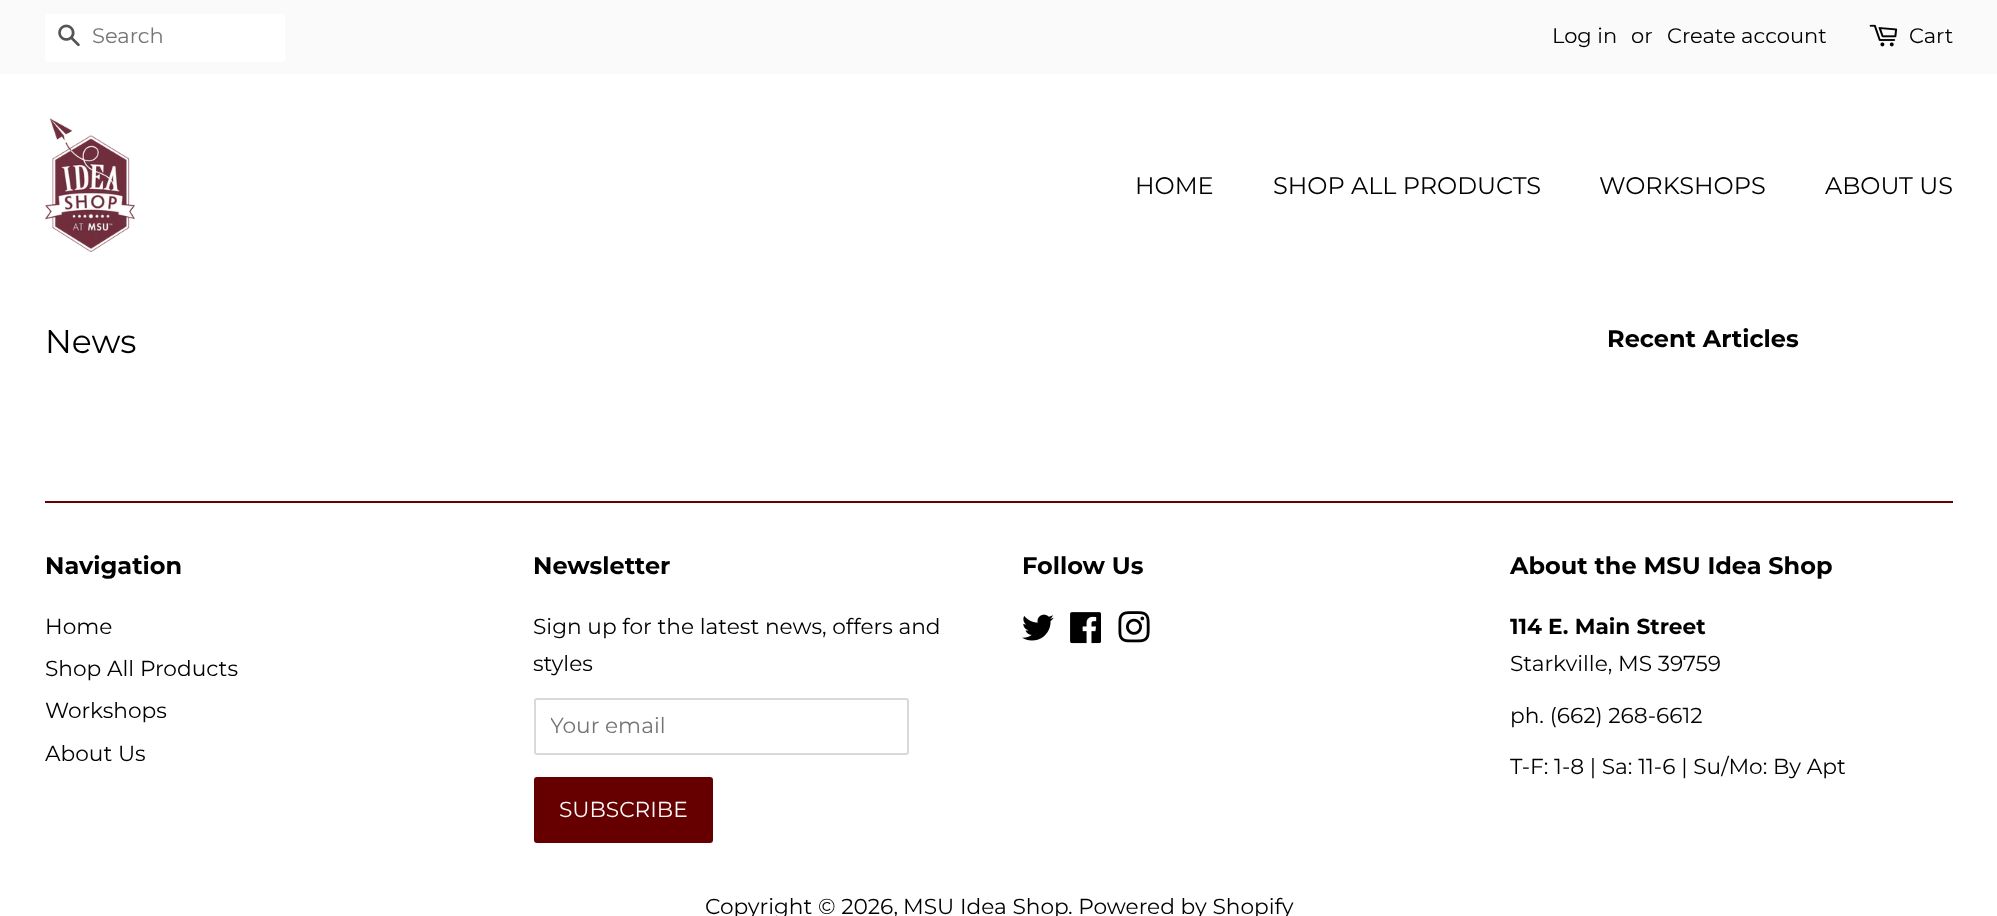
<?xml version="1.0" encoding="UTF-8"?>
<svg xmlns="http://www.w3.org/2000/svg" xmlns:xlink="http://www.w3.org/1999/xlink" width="1997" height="916">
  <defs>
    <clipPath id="clip1"><rect x="551" y="713" width="342" height="27" /></clipPath>
  </defs>
  <rect width="100%" height="100%" fill="#ffffff" />
  <rect width="1997" height="74" fill="#fafafa" />
  <rect x="45" y="14" width="240" height="48" rx="3" fill="#ffffff" />
  <image x="58" y="24" width="22" height="23" xlink:href="image1.png" />
  <image x="1869" y="24" width="29" height="23" xlink:href="image2.png" />
  <image x="45" y="118" width="90" height="134" xlink:href="image3.png" />
  <rect x="45" y="501" width="1908" height="2" fill="#660000" />
  <rect x="535" y="699" width="373" height="55" rx="2" fill="none" stroke="#d9d9d9" stroke-width="2" />
  <rect x="534" y="777" width="179" height="66" rx="3" fill="#660000" />
  <image x="1022" y="614" width="32" height="27" xlink:href="image4.png" />
  <image x="1070" y="612" width="31" height="32" xlink:href="image5.png" />
  <image x="1118" y="611" width="32" height="32" xlink:href="image6.png" />
  <text x="92" y="43" style="font-family: Montserrat; font-size: 21px; fill: #757575">Search</text>
  <text x="1552" y="43" style="font-family: Montserrat; font-size: 21px; fill: #000000">Log in</text>
  <text x="1631" y="43" style="font-family: Montserrat; font-size: 21px; fill: #000000">or</text>
  <text x="1667" y="43" style="font-family: Montserrat; font-size: 21px; fill: #000000">Create account</text>
  <text x="1909" y="43" style="font-family: Montserrat; font-size: 21px; fill: #000000">Cart</text>
  <text x="1135" y="194" style="font-family: Montserrat; font-size: 24px; fill: #000000">HOME</text>
  <text x="1273" y="194" style="font-family: Montserrat; font-size: 24px; fill: #000000">SHOP ALL PRODUCTS</text>
  <text x="1599" y="194" style="font-family: Montserrat; font-size: 24px; fill: #000000">WORKSHOPS</text>
  <text x="1825" y="194" style="font-family: Montserrat; font-size: 24px; fill: #000000">ABOUT US</text>
  <text x="45" y="353" style="font-family: Montserrat; font-size: 33px; fill: #000000">News</text>
  <text x="1607" y="347" style="font-family: Montserrat; font-size: 24px; font-weight: bold; fill: #000000">Recent Articles</text>
  <text x="45" y="574" style="font-family: Montserrat; font-size: 24px; font-weight: bold; fill: #000000">Navigation</text>
  <text x="45" y="634" style="font-family: Montserrat; font-size: 21.7px; fill: #000000">Home</text>
  <text x="45" y="676" style="font-family: Montserrat; font-size: 21.7px; fill: #000000">Shop All Products</text>
  <text x="45" y="718" style="font-family: Montserrat; font-size: 21.7px; fill: #000000">Workshops</text>
  <text x="45" y="761" style="font-family: Montserrat; font-size: 21.7px; fill: #000000">About Us</text>
  <text x="533" y="574" style="font-family: Montserrat; font-size: 24px; font-weight: bold; fill: #000000">Newsletter</text>
  <text x="533" y="634" style="font-family: Montserrat; font-size: 21.7px; fill: #000000">Sign up for the latest news, offers and</text>
  <text x="533" y="671" style="font-family: Montserrat; font-size: 21.7px; fill: #000000">styles</text>
  <g clip-path="url(#clip1)">
    <text x="550" y="733" style="font-family: Montserrat; font-size: 21.7px; fill: #757575">Your email</text>
  </g>
  <text x="559" y="817" style="font-family: Montserrat; font-size: 21.7px; fill: #fafafa">SUBSCRIBE</text>
  <text x="1022" y="574" style="font-family: Montserrat; font-size: 24px; font-weight: bold; fill: #000000">Follow Us</text>
  <text x="1510" y="574" style="font-family: Montserrat; font-size: 24px; font-weight: bold; fill: #000000">About the MSU Idea Shop</text>
  <text x="1510" y="634" style="font-family: Montserrat; font-size: 21.7px; font-weight: bold; fill: #000000">114 E. Main Street</text>
  <text x="1510" y="671" style="font-family: Montserrat; font-size: 21.7px; fill: #000000">Starkville, MS 39759</text>
  <text x="1510" y="723" style="font-family: Montserrat; font-size: 21.7px; fill: #000000">ph. (662) 268-6612</text>
  <text x="1510" y="774" style="font-family: Montserrat; font-size: 21.7px; fill: #000000">T-F: 1-8 | Sa: 11-6 | Su/Mo: By Apt</text>
  <text x="705" y="914" style="font-family: Montserrat; font-size: 21.7px; fill: #000000">Copyright © 2026,</text>
  <text x="903" y="914" style="font-family: Montserrat; font-size: 21.7px; fill: #000000">MSU Idea Shop</text>
  <text x="1068" y="914" style="font-family: Montserrat; font-size: 21.7px; fill: #000000">. Powered by Shopify</text>
</svg>
